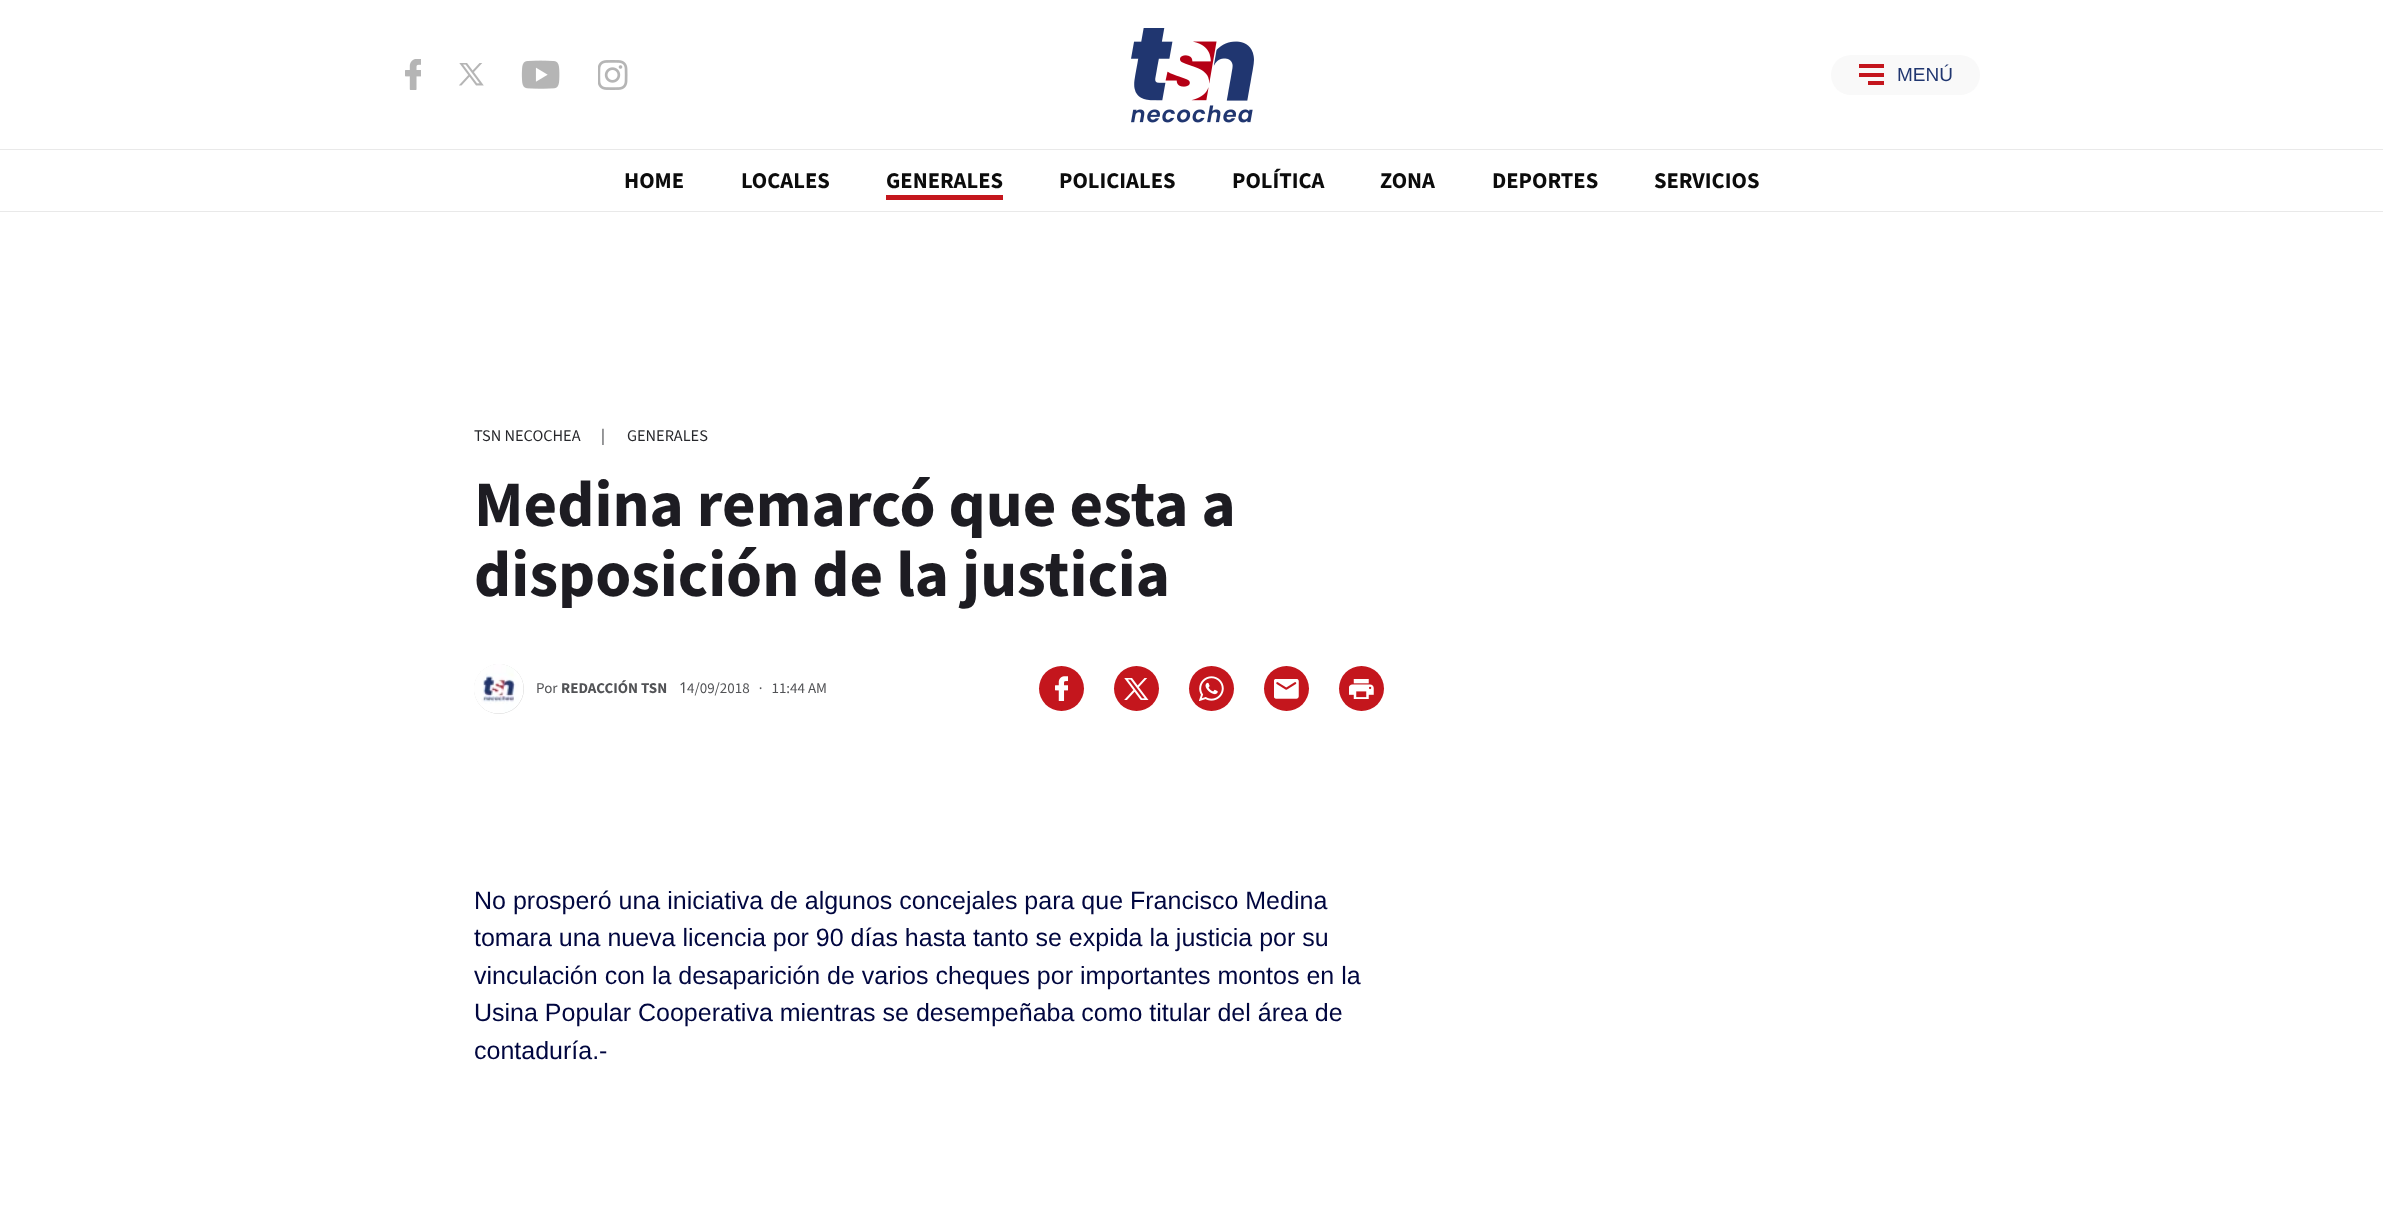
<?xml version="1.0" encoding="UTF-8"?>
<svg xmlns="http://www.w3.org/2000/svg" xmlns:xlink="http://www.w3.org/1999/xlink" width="2383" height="1229">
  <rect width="100%" height="100%" fill="#ffffff" />
  <rect y="149" width="2383" height="1" fill="#e9e9e9" />
  <image x="405" y="59" width="16" height="31" xlink:href="image1.png" />
  <image x="459" y="63" width="25" height="23" xlink:href="image2.png" />
  <image x="521" y="60" width="39" height="29" xlink:href="image3.png" />
  <image x="598" y="60" width="30" height="30" xlink:href="image4.png" />
  <image x="1131" y="28" width="123" height="95" xlink:href="image5.png" />
  <rect x="1831" y="55" width="149" height="40" rx="20" fill="#f9f9f9" />
  <rect x="1859" y="64" width="25" height="4" fill="#c4161d" />
  <rect x="1859" y="73" width="25" height="4" fill="#c4161d" />
  <rect x="1868" y="81" width="16" height="4" fill="#c4161d" />
  <rect y="211" width="2383" height="1" fill="#e9e9e9" />
  <rect x="886" y="195" width="117" height="5" fill="#c4161d" />
  <circle cx="499" cy="689" r="25" fill="#dcdcdc" />
  <image x="474" y="664" width="50" height="50" xlink:href="image6.png" />
  <circle cx="1061.5" cy="688.5" r="22.5" fill="#c4161d" />
  <image x="1055" y="676" width="13" height="25" xlink:href="image7.png" />
  <circle cx="1136.5" cy="688.5" r="22.5" fill="#c4161d" />
  <image x="1124" y="678" width="25" height="22" xlink:href="image8.png" />
  <circle cx="1211.5" cy="688.5" r="22.5" fill="#c4161d" />
  <image x="1199" y="676" width="25" height="25" xlink:href="image9.png" />
  <circle cx="1286.5" cy="688.5" r="22.5" fill="#c4161d" />
  <image x="1274" y="679" width="25" height="20" xlink:href="image10.png" />
  <circle cx="1361.5" cy="688.5" r="22.5" fill="#c4161d" />
  <image x="1349" y="679" width="25" height="20" xlink:href="image11.png" />
  <text x="1897" y="81" style="font-family: Liberation Sans; font-size: 19px; fill: #203670">MENÚ</text>
  <text x="624" y="188" style="font-family: 'Source Sans 3'; font-size: 22.5px; font-weight: bold; fill: #0c0c0c">HOME</text>
  <text x="741" y="188" style="font-family: 'Source Sans 3'; font-size: 22.5px; font-weight: bold; fill: #0c0c0c">LOCALES</text>
  <text x="886" y="188" style="font-family: 'Source Sans 3'; font-size: 22.5px; font-weight: bold; fill: #0c0c0c">GENERALES</text>
  <text x="1059" y="188" style="font-family: 'Source Sans 3'; font-size: 22.5px; font-weight: bold; fill: #0c0c0c">POLICIALES</text>
  <text x="1232" y="188" style="font-family: 'Source Sans 3'; font-size: 22.5px; font-weight: bold; fill: #0c0c0c">POLÍTICA</text>
  <text x="1380" y="188" style="font-family: 'Source Sans 3'; font-size: 22.5px; font-weight: bold; fill: #0c0c0c">ZONA</text>
  <text x="1492" y="188" style="font-family: 'Source Sans 3'; font-size: 22.5px; font-weight: bold; fill: #0c0c0c">DEPORTES</text>
  <text x="1654" y="188" style="font-family: 'Source Sans 3'; font-size: 22.5px; font-weight: bold; fill: #0c0c0c">SERVICIOS</text>
  <text x="474" y="441" style="font-family: 'Source Sans 3'; font-size: 16.25px; fill: #27282c">TSN NECOCHEA</text>
  <text x="601" y="441" style="font-family: 'Source Sans 3'; font-size: 16.25px; fill: #27282c">|</text>
  <text x="627" y="441" style="font-family: 'Source Sans 3'; font-size: 16.25px; fill: #27282c">GENERALES</text>
  <text x="474" y="526" style="font-family: 'Source Sans 3'; font-size: 65px; font-weight: bold; fill: #1d1c22">Medina remarcó que esta a</text>
  <text x="474" y="596" style="font-family: 'Source Sans 3'; font-size: 65px; font-weight: bold; fill: #1d1c22">disposición de la justicia</text>
  <text x="536" y="693" style="font-family: 'Source Sans 3'; font-size: 15px; fill: #525356">Por</text>
  <text x="561" y="693" style="font-family: 'Source Sans 3'; font-size: 15px; font-weight: bold; fill: #525356">REDACCIÓN TSN</text>
  <text x="679" y="693" style="font-family: Noto Sans; font-size: 15px; fill: #525356">1</text>
  <text x="687" y="693" style="font-family: 'Source Sans 3'; font-size: 15px; fill: #525356" xml:space="preserve">4/09/2018   ·   11:44 AM</text>
  <text x="474" y="909" style="font-family: Liberation Sans; font-size: 25px; fill: #00063f">No prosperó una iniciativa de algunos concejales para que Francisco Medina</text>
  <text x="474" y="946" style="font-family: Liberation Sans; font-size: 25px; fill: #00063f">tomara una nueva licencia por 90 días hasta tanto se expida la justicia por su</text>
  <text x="474" y="984" style="font-family: Liberation Sans; font-size: 25px; fill: #00063f">vinculación con la desaparición de varios cheques por importantes montos en la</text>
  <text x="474" y="1021" style="font-family: Liberation Sans; font-size: 25px; fill: #00063f">Usina Popular Cooperativa mientras se desempeñaba como titular del área de</text>
  <text x="474" y="1059" style="font-family: Liberation Sans; font-size: 25px; fill: #00063f">contaduría.-</text>
</svg>
